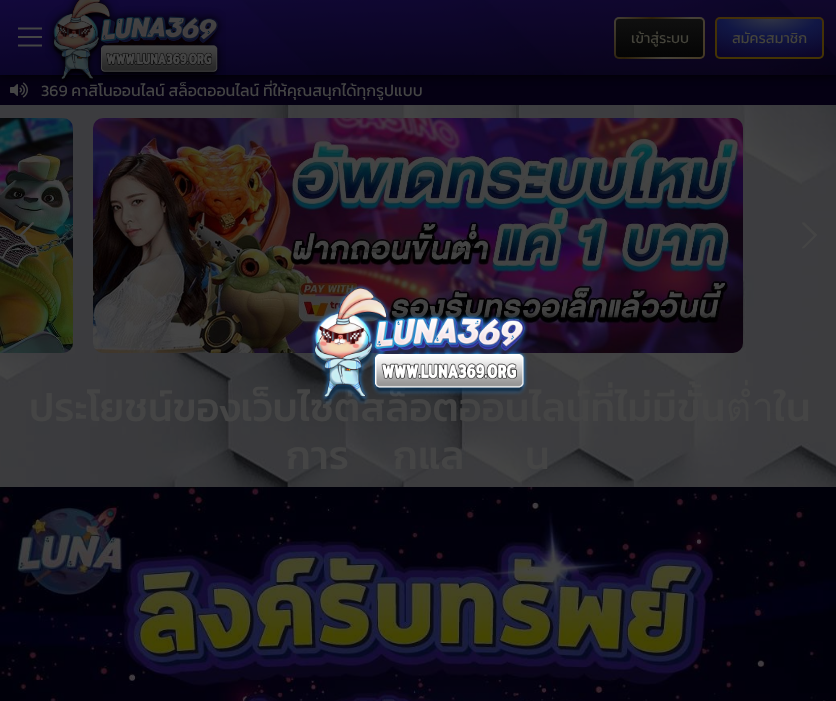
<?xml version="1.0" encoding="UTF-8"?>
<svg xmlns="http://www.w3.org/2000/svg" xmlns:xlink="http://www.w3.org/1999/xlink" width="836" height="701">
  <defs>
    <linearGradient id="g1" gradientUnits="userSpaceOnUse" x1="619" y1="10" x2="700" y2="66"><stop offset="0" stop-color="#454038" /><stop offset="0.32" stop-color="#2d2008" /><stop offset="0.65" stop-color="#454139" /><stop offset="1" stop-color="#453923" /></linearGradient>
    <linearGradient id="g2" gradientUnits="userSpaceOnUse" x1="660" y1="17" x2="660" y2="59"><stop offset="0" stop-color="#101010" /><stop offset="1" stop-color="#040404" /></linearGradient>
    <linearGradient id="g3" gradientUnits="userSpaceOnUse" x1="770" y1="17" x2="770" y2="59"><stop offset="0" stop-color="#443008" /><stop offset="1" stop-color="#453402" /></linearGradient>
    <radialGradient id="g4" gradientUnits="userSpaceOnUse" cx="0" cy="0" r="1" gradientTransform="matrix(109 0 0 42 770 17)"><stop offset="0" stop-color="#323645" /><stop offset="0.44" stop-color="#111745" /><stop offset="1" stop-color="#0c062a" /></radialGradient>
  </defs>
  <rect width="100%" height="100%" fill="#ffffff" />
  <image x="0" y="105" width="836" height="382" xlink:href="image1.png" />
  <rect y="75" width="836" height="30" fill="#050013" />
  <image x="10" y="82" width="18" height="16" xlink:href="image4.png" />
  <rect width="836" height="75" fill="#000000" filter="blur(5px)" />
  <image x="0" y="0" width="836" height="75" xlink:href="image2.png" />
  <path d="M 18 28.5 h 24" fill="none" stroke="#454545" stroke-width="2" />
  <rect x="18" y="36" width="24" height="2" fill="#454545" />
  <path d="M 18 45.5 h 24" fill="none" stroke="#454545" stroke-width="2" />
  <rect x="614" y="17" width="91" height="42" rx="5" fill="url(#g1)" />
  <rect x="616" y="19" width="87" height="38" rx="3" fill="url(#g2)" />
  <rect x="715" y="17" width="109" height="42" rx="5" fill="url(#g3)" />
  <rect x="717" y="19" width="105" height="38" rx="3" fill="url(#g4)" />
  <image x="0" y="118" width="73" height="235" xlink:href="image5.png" />
  <image x="93" y="118" width="650" height="235" xlink:href="image6.png" />
  <path d="M 19 235 l 13.5 -13 l 1 1 l -12 12 l 12 12 l -1 1.5 z" fill="#454545" />
  <image x="20" y="222" width="14" height="27" xlink:href="image7.png" />
  <path d="M 817.5 235 l -13.5 13.5 l -1 -1.5 l 12 -12 l -12 -12 l 1 -1 z" fill="#454545" />
  <image x="802" y="222" width="13" height="27" xlink:href="image8.png" />
  <image x="418" y="343" width="35" height="11" xlink:href="image10.png" />
  <image x="0" y="487" width="836" height="214" xlink:href="image11.png" />
  <text x="631" y="43" style="font-family: Kanit; font-size: 14.5px; fill: #45443b">เข้าสู่ระบบ</text>
  <text x="732" y="43" style="font-family: Kanit; font-size: 14.5px; fill: #45443b">สมัครสมาชิก</text>
  <text x="41" y="96" style="font-family: Kanit; font-size: 16px; fill: #454545">369 คาสิโนออนไลน์ สล็อตออนไลน์ ที่ให้คุณสนุกได้ทุกรูปแบบ</text>
  <image x="45" y="0" width="181" height="88" xlink:href="image3.png" />
  <text x="29" y="421" style="font-family: Kanit; font-size: 40px; font-weight: 500; fill: #454545">ประโยชน์ของเว็บไซต์สล็อตออนไลน์ที่ไม่มีขั้นต่ำใน</text>
  <circle cx="418" cy="361" r="28" fill="#03071e" fill-opacity="0.67" />
  <image x="310" y="284" width="218" height="121" xlink:href="image9.png" />
  <text x="286" y="469" style="font-family: Kanit; font-size: 40px; font-weight: 500; fill: #454545">การ</text>
  <text x="393" y="469" style="font-family: Kanit; font-size: 40px; font-weight: 500; fill: #454545">กแล</text>
  <text x="525" y="469" style="font-family: Kanit; font-size: 40px; font-weight: 500; fill: #454545">น</text>
</svg>
